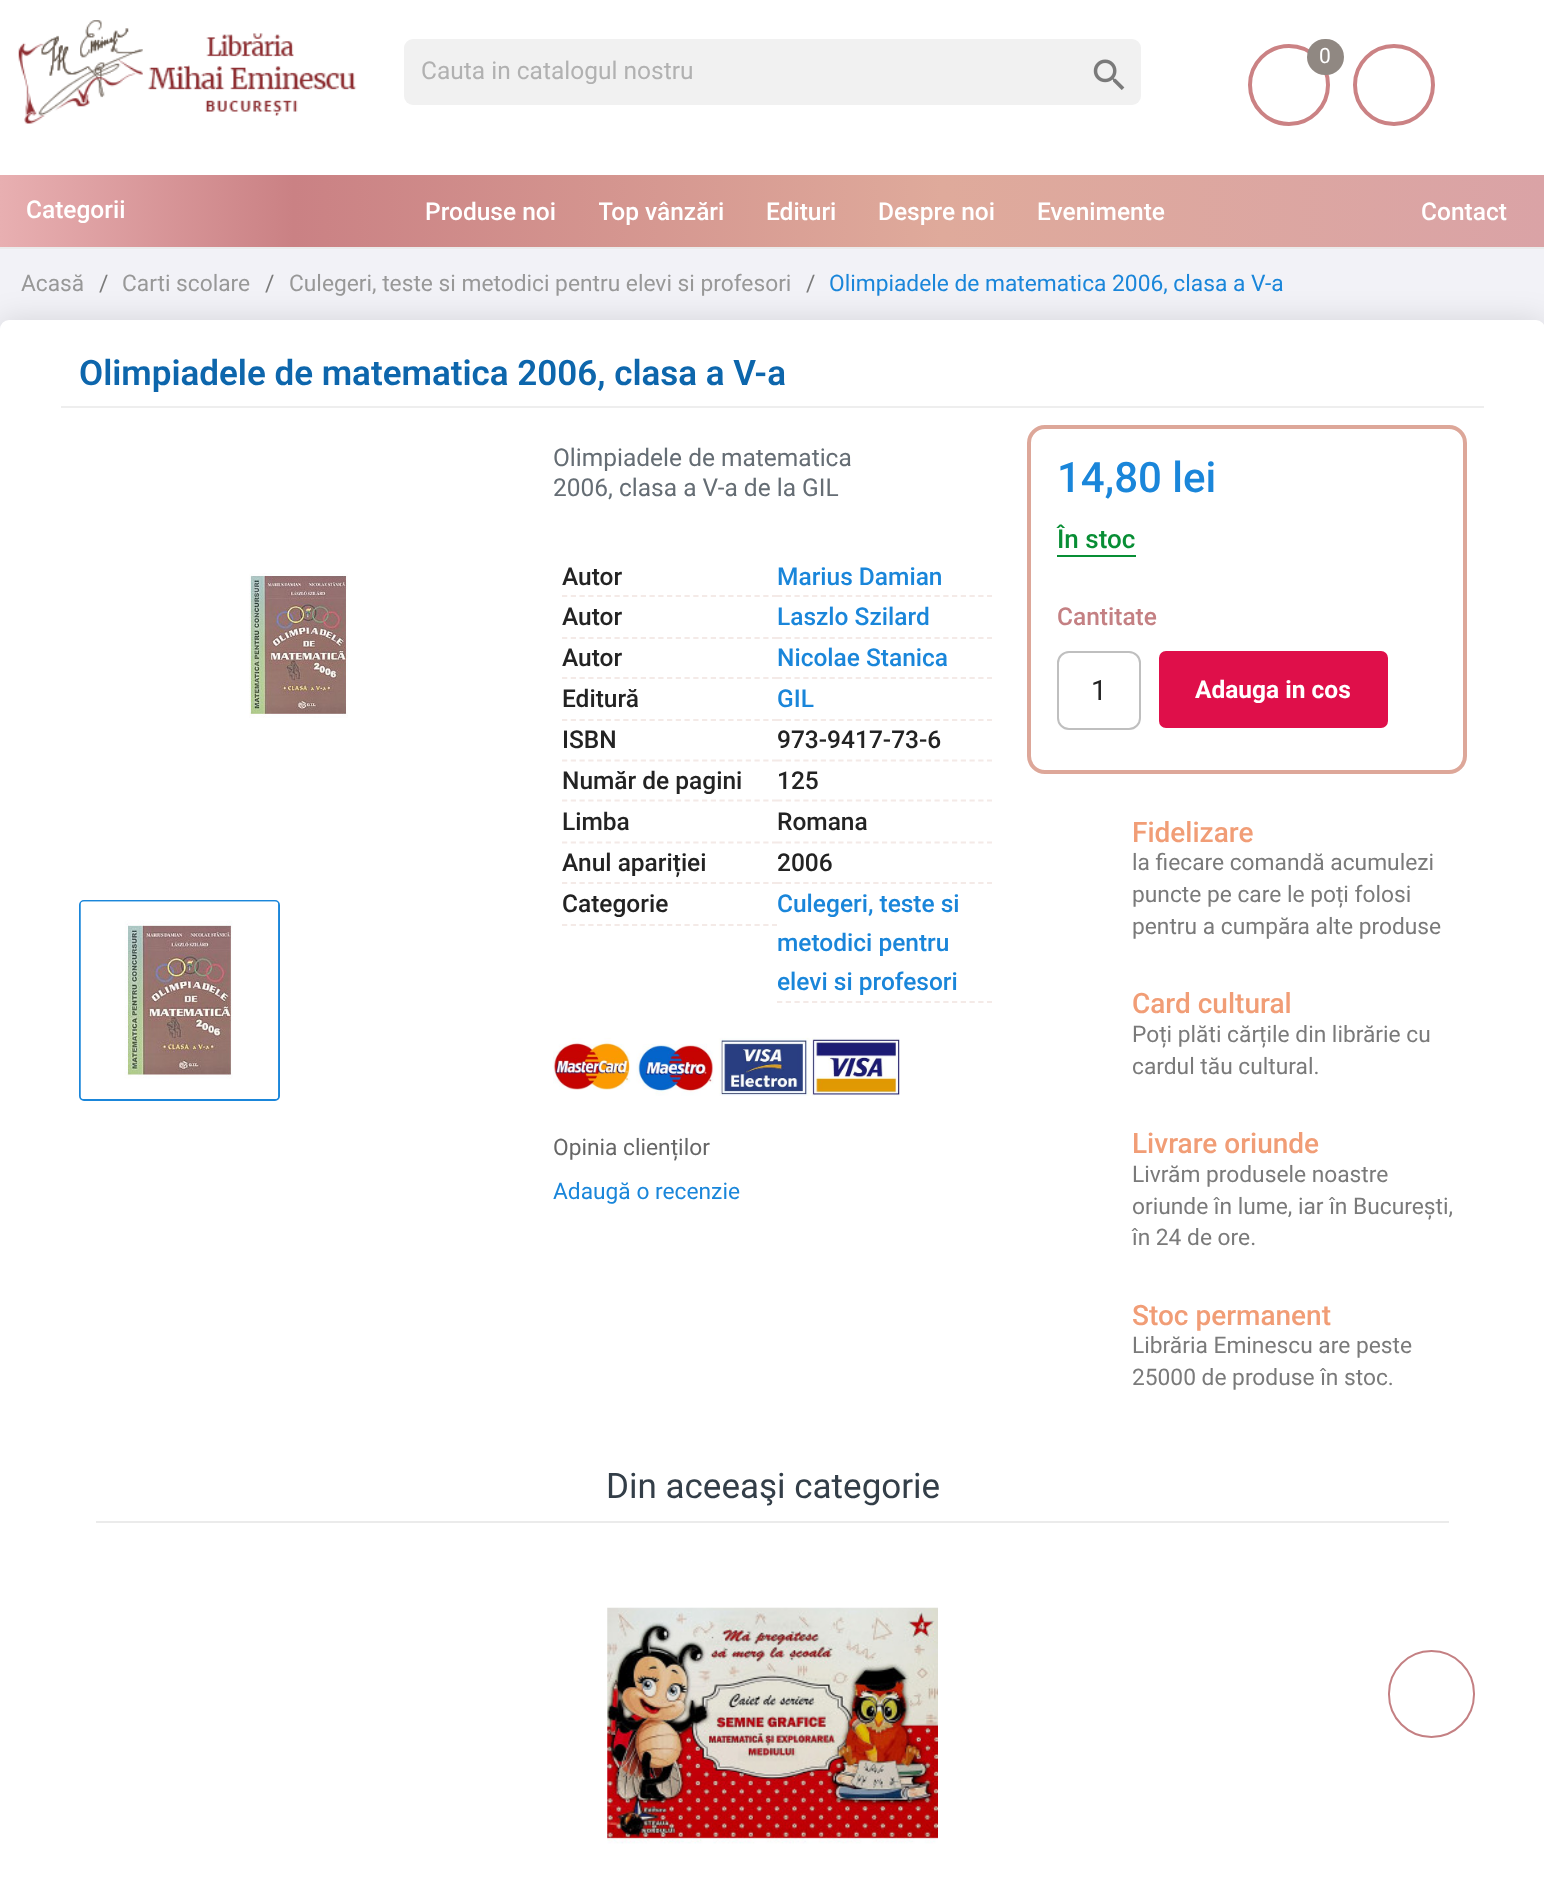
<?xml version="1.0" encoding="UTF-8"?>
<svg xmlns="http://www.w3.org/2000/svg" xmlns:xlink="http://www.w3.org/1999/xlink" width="1544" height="1895">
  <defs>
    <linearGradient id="g1" gradientUnits="userSpaceOnUse" x1="0" y1="211" x2="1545" y2="211"><stop offset="0" stop-color="#e8afb1" /><stop offset="0.19" stop-color="#ca8184" /><stop offset="0.61" stop-color="#dfaa9b" /><stop offset="1" stop-color="#daa3a6" /></linearGradient>
    <clipPath id="clip1"><rect x="599" y="175" width="126" height="74" /></clipPath>
  </defs>
  <rect width="100%" height="100%" fill="#f2f2f7" />
  <rect width="1544" height="175" fill="#ffffff" />
  <image x="18" y="20" width="339" height="104" xlink:href="image1.png" />
  <circle cx="1289" cy="85" r="39" fill="none" stroke="#cb8284" stroke-width="4" />
  <rect x="1307" y="39" width="37" height="36" rx="18" fill="#908882" />
  <circle cx="1394" cy="85" r="39" fill="none" stroke="#cb8284" stroke-width="4" />
  <rect x="404" y="39" width="737" height="66" rx="9" fill="#f1f1f1" />
  <image x="1093" y="59" width="32" height="31" xlink:href="image2.png" />
  <rect y="175" width="1544" height="72" fill="url(#g1)" />
  <rect y="247" width="1544" height="2" fill="#ebebeb" />
  <rect y="320" width="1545" height="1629" rx="9" fill="#000000" fill-opacity="0.12" filter="blur(15px)" />
  <rect y="320" width="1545" height="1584" rx="9" fill="#ffffff" />
  <rect x="61" y="406" width="1423" height="2" fill="#eeeeee" />
  <image x="249" y="573" width="99" height="145" xlink:href="image3.png" />
  <rect x="80" y="901" width="199" height="199" rx="4" fill="none" stroke="#1a86da" stroke-width="2" />
  <image x="80" y="901" width="199" height="198" xlink:href="image4.png" />
  <path d="M 562 596 h 215" fill="none" stroke="#f4eae7" stroke-width="1.8" stroke-dasharray="5.25 3.5" />
  <path d="M 777 596 h 215" fill="none" stroke="#f4eae7" stroke-width="1.8" stroke-dasharray="5.25 3.5" />
  <path d="M 562 638 h 215" fill="none" stroke="#f4eae7" stroke-width="1.8" stroke-dasharray="5.25 3.5" />
  <path d="M 777 638 h 215" fill="none" stroke="#f4eae7" stroke-width="1.8" stroke-dasharray="5.25 3.5" />
  <path d="M 562 678 h 215" fill="none" stroke="#f4eae7" stroke-width="1.8" stroke-dasharray="5.25 3.5" />
  <path d="M 777 678 h 215" fill="none" stroke="#f4eae7" stroke-width="1.8" stroke-dasharray="5.25 3.5" />
  <path d="M 562 720 h 215" fill="none" stroke="#f4eae7" stroke-width="1.8" stroke-dasharray="5.25 3.5" />
  <path d="M 777 720 h 215" fill="none" stroke="#f4eae7" stroke-width="1.8" stroke-dasharray="5.25 3.5" />
  <path d="M 562 760.5 h 215" fill="none" stroke="#f4eae7" stroke-width="1.8" stroke-dasharray="5.25 3.5" />
  <path d="M 777 760.5 h 215" fill="none" stroke="#f4eae7" stroke-width="1.8" stroke-dasharray="5.25 3.5" />
  <path d="M 562 800.5 h 215" fill="none" stroke="#f4eae7" stroke-width="1.8" stroke-dasharray="5.25 3.5" />
  <path d="M 777 800.5 h 215" fill="none" stroke="#f4eae7" stroke-width="1.8" stroke-dasharray="5.25 3.5" />
  <path d="M 562 842.5 h 215" fill="none" stroke="#f4eae7" stroke-width="1.8" stroke-dasharray="5.25 3.5" />
  <path d="M 777 842.5 h 215" fill="none" stroke="#f4eae7" stroke-width="1.8" stroke-dasharray="5.25 3.5" />
  <path d="M 562 883 h 215" fill="none" stroke="#f4eae7" stroke-width="1.8" stroke-dasharray="5.25 3.5" />
  <path d="M 777 883 h 215" fill="none" stroke="#f4eae7" stroke-width="1.8" stroke-dasharray="5.25 3.5" />
  <path d="M 562 925 h 215" fill="none" stroke="#f4eae7" stroke-width="1.8" stroke-dasharray="5.25 3.5" />
  <path d="M 777 1002 h 215" fill="none" stroke="#f4eae7" stroke-width="1.8" stroke-dasharray="5.25 3.5" />
  <image x="553" y="1037" width="347" height="59" xlink:href="image5.png" />
  <rect x="1029" y="427" width="436" height="345" rx="16" fill="none" stroke="#dda799" stroke-width="4" />
  <rect x="1057" y="555" width="79" height="2" fill="#088e35" />
  <rect x="1058" y="652" width="82" height="77" rx="11" fill="none" stroke="#bfbfbf" stroke-width="2" />
  <rect x="1160" y="652" width="227" height="75" rx="6" fill="#df0f4a" stroke="#df0f4a" stroke-width="2" />
  <rect x="96" y="1521" width="1353" height="2" fill="#ebebeb" />
  <image x="607" y="1607" width="331" height="237" xlink:href="image6.png" />
  <rect x="1389" y="1651" width="85" height="86" rx="42.5" fill="none" stroke="#c48083" stroke-width="2" />
  <text x="1319" y="63" style="font-family: Roboto; font-size: 21px; fill: #ffffff">0</text>
  <text x="421" y="79" style="font-family: Roboto; font-size: 24.5px; fill: #b1b1b1">Cauta in catalogul nostru</text>
  <text x="26" y="218" style="font-family: Roboto; font-size: 24.5px; font-weight: 500; fill: #ffffff">Categorii</text>
  <text x="425" y="220" style="font-family: Roboto; font-size: 24.5px; font-weight: 500; fill: #ffffff">Produse noi</text>
  <g clip-path="url(#clip1)">
    <text x="598" y="220" style="font-family: Roboto; font-size: 24.5px; font-weight: 500; fill: #ffffff">Top vânzări</text>
  </g>
  <text x="766" y="220" style="font-family: Roboto; font-size: 24.5px; font-weight: 500; fill: #ffffff">Edituri</text>
  <text x="878" y="220" style="font-family: Roboto; font-size: 24.5px; font-weight: 500; fill: #ffffff">Despre noi</text>
  <text x="1037" y="220" style="font-family: Roboto; font-size: 24.5px; font-weight: 500; fill: #ffffff">Evenimente</text>
  <text x="1421" y="220" style="font-family: Roboto; font-size: 24.5px; font-weight: 500; fill: #ffffff">Contact</text>
  <text x="21" y="291" style="font-family: Roboto; font-size: 22.75px; fill: #989898">Acasă</text>
  <text x="99" y="291" style="font-family: Roboto; font-size: 22.75px; fill: #7a7a7a">/</text>
  <text x="122" y="291" style="font-family: Roboto; font-size: 22.75px; fill: #989898">Carti scolare</text>
  <text x="265" y="291" style="font-family: Roboto; font-size: 22.75px; fill: #7a7a7a">/</text>
  <text x="289" y="291" style="font-family: Roboto; font-size: 22.75px; fill: #989898">Culegeri, teste si metodici pentru elevi si profesori</text>
  <text x="806" y="291" style="font-family: Roboto; font-size: 22.75px; fill: #7a7a7a">/</text>
  <text x="829" y="291" style="font-family: Roboto; font-size: 22.75px; fill: #1a86da">Olimpiadele de matematica 2006, clasa a V-a</text>
  <text x="79" y="385" style="font-family: Roboto; font-size: 35px; font-weight: 600; fill: #0d66ac">Olimpiadele de matematica 2006, clasa a V-a</text>
  <text x="553" y="466" style="font-family: Roboto; font-size: 24.5px; fill: #656d74">Olimpiadele de matematica</text>
  <text x="553" y="496" style="font-family: Roboto; font-size: 24.5px; fill: #656d74">2006, clasa a V-a de la GIL</text>
  <text x="562" y="585" style="font-family: Roboto; font-size: 24.5px; font-weight: 500; fill: #232323">Autor</text>
  <text x="777" y="585" style="font-family: Roboto; font-size: 24.5px; font-weight: 500; fill: #1a86da">Marius Damian</text>
  <text x="562" y="625" style="font-family: Roboto; font-size: 24.5px; font-weight: 500; fill: #232323">Autor</text>
  <text x="777" y="625" style="font-family: Roboto; font-size: 24.5px; font-weight: 500; fill: #1a86da">Laszlo Szilard</text>
  <text x="562" y="666" style="font-family: Roboto; font-size: 24.5px; font-weight: 500; fill: #232323">Autor</text>
  <text x="777" y="666" style="font-family: Roboto; font-size: 24.5px; font-weight: 500; fill: #1a86da">Nicolae Stanica</text>
  <text x="562" y="707" style="font-family: Roboto; font-size: 24.5px; font-weight: 500; fill: #232323">Editură</text>
  <text x="777" y="707" style="font-family: Roboto; font-size: 24.5px; font-weight: 500; fill: #1a86da">GIL</text>
  <text x="562" y="748" style="font-family: Roboto; font-size: 24.5px; font-weight: 500; fill: #232323">ISBN</text>
  <text x="777" y="748" style="font-family: Roboto; font-size: 24.5px; font-weight: 500; fill: #232323">973-9417-73-6</text>
  <text x="562" y="789" style="font-family: Roboto; font-size: 24.5px; font-weight: 500; fill: #232323">Număr de pagini</text>
  <text x="777" y="789" style="font-family: Roboto; font-size: 24.5px; font-weight: 500; fill: #232323">125</text>
  <text x="562" y="830" style="font-family: Roboto; font-size: 24.5px; font-weight: 500; fill: #232323">Limba</text>
  <text x="777" y="830" style="font-family: Roboto; font-size: 24.5px; font-weight: 500; fill: #232323">Romana</text>
  <text x="562" y="871" style="font-family: Roboto; font-size: 24.5px; font-weight: 500; fill: #232323">Anul apariției</text>
  <text x="777" y="871" style="font-family: Roboto; font-size: 24.5px; font-weight: 500; fill: #232323">2006</text>
  <text x="562" y="912" style="font-family: Roboto; font-size: 24.5px; font-weight: 500; fill: #232323">Categorie</text>
  <text x="777" y="912" style="font-family: Roboto; font-size: 24.5px; font-weight: 500; fill: #1a86da">Culegeri, teste si</text>
  <text x="777" y="951" style="font-family: Roboto; font-size: 24.5px; font-weight: 500; fill: #1a86da">metodici pentru</text>
  <text x="777" y="990" style="font-family: Roboto; font-size: 24.5px; font-weight: 500; fill: #1a86da">elevi si profesori</text>
  <text x="553" y="1155" style="font-family: Roboto; font-size: 22.75px; fill: #666666">Opinia clienților</text>
  <text x="553" y="1199" style="font-family: Roboto; font-size: 22.75px; fill: #1a86da">Adaugă o recenzie</text>
  <text x="1057" y="492" style="font-family: Roboto; font-size: 42px; font-weight: 500; fill: #1a86da">14,80 lei</text>
  <text x="1057" y="548" style="font-family: Roboto; font-size: 26px; font-weight: 500; fill: #088e35">În stoc</text>
  <text x="1057" y="625" style="font-family: Roboto; font-size: 24.5px; font-weight: 500; fill: #c48083">Cantitate</text>
  <text x="1091" y="700" style="font-family: Roboto; font-size: 28px; fill: #232323">1</text>
  <text x="1195" y="698" style="font-family: Roboto; font-size: 24.5px; font-weight: bold; fill: #ffffff">Adauga in cos</text>
  <text x="1132" y="842" style="font-family: Roboto; font-size: 28px; font-weight: 500; fill: #f19d76">Fidelizare</text>
  <text x="1132" y="870" style="font-family: Roboto; font-size: 22.75px; fill: #7a7a7a">la fiecare comandă acumulezi</text>
  <text x="1132" y="902" style="font-family: Roboto; font-size: 22.75px; fill: #7a7a7a">puncte pe care le poți folosi</text>
  <text x="1132" y="934" style="font-family: Roboto; font-size: 22.75px; fill: #7a7a7a">pentru a cumpăra alte produse</text>
  <text x="1132" y="1013" style="font-family: Roboto; font-size: 28px; font-weight: 500; fill: #f19d76">Card cultural</text>
  <text x="1132" y="1042" style="font-family: Roboto; font-size: 22.75px; fill: #7a7a7a">Poți plăti cărțile din librărie cu</text>
  <text x="1132" y="1074" style="font-family: Roboto; font-size: 22.75px; fill: #7a7a7a">cardul tău cultural.</text>
  <text x="1132" y="1153" style="font-family: Roboto; font-size: 28px; font-weight: 500; fill: #f19d76">Livrare oriunde</text>
  <text x="1132" y="1182" style="font-family: Roboto; font-size: 22.75px; fill: #7a7a7a">Livrăm produsele noastre</text>
  <text x="1132" y="1214" style="font-family: Roboto; font-size: 22.75px; fill: #7a7a7a">oriunde în lume, iar în București,</text>
  <text x="1132" y="1245" style="font-family: Roboto; font-size: 22.75px; fill: #7a7a7a">în 24 de ore.</text>
  <text x="1132" y="1325" style="font-family: Roboto; font-size: 28px; font-weight: 500; fill: #f19d76">Stoc permanent</text>
  <text x="1132" y="1353" style="font-family: Roboto; font-size: 22.75px; fill: #7a7a7a">Librăria Eminescu are peste</text>
  <text x="1132" y="1385" style="font-family: Roboto; font-size: 22.75px; fill: #7a7a7a">25000 de produse în stoc.</text>
  <text x="606" y="1498" style="font-family: Roboto; font-size: 35px; fill: #333e48">Din aceeaşi categorie</text>
</svg>
